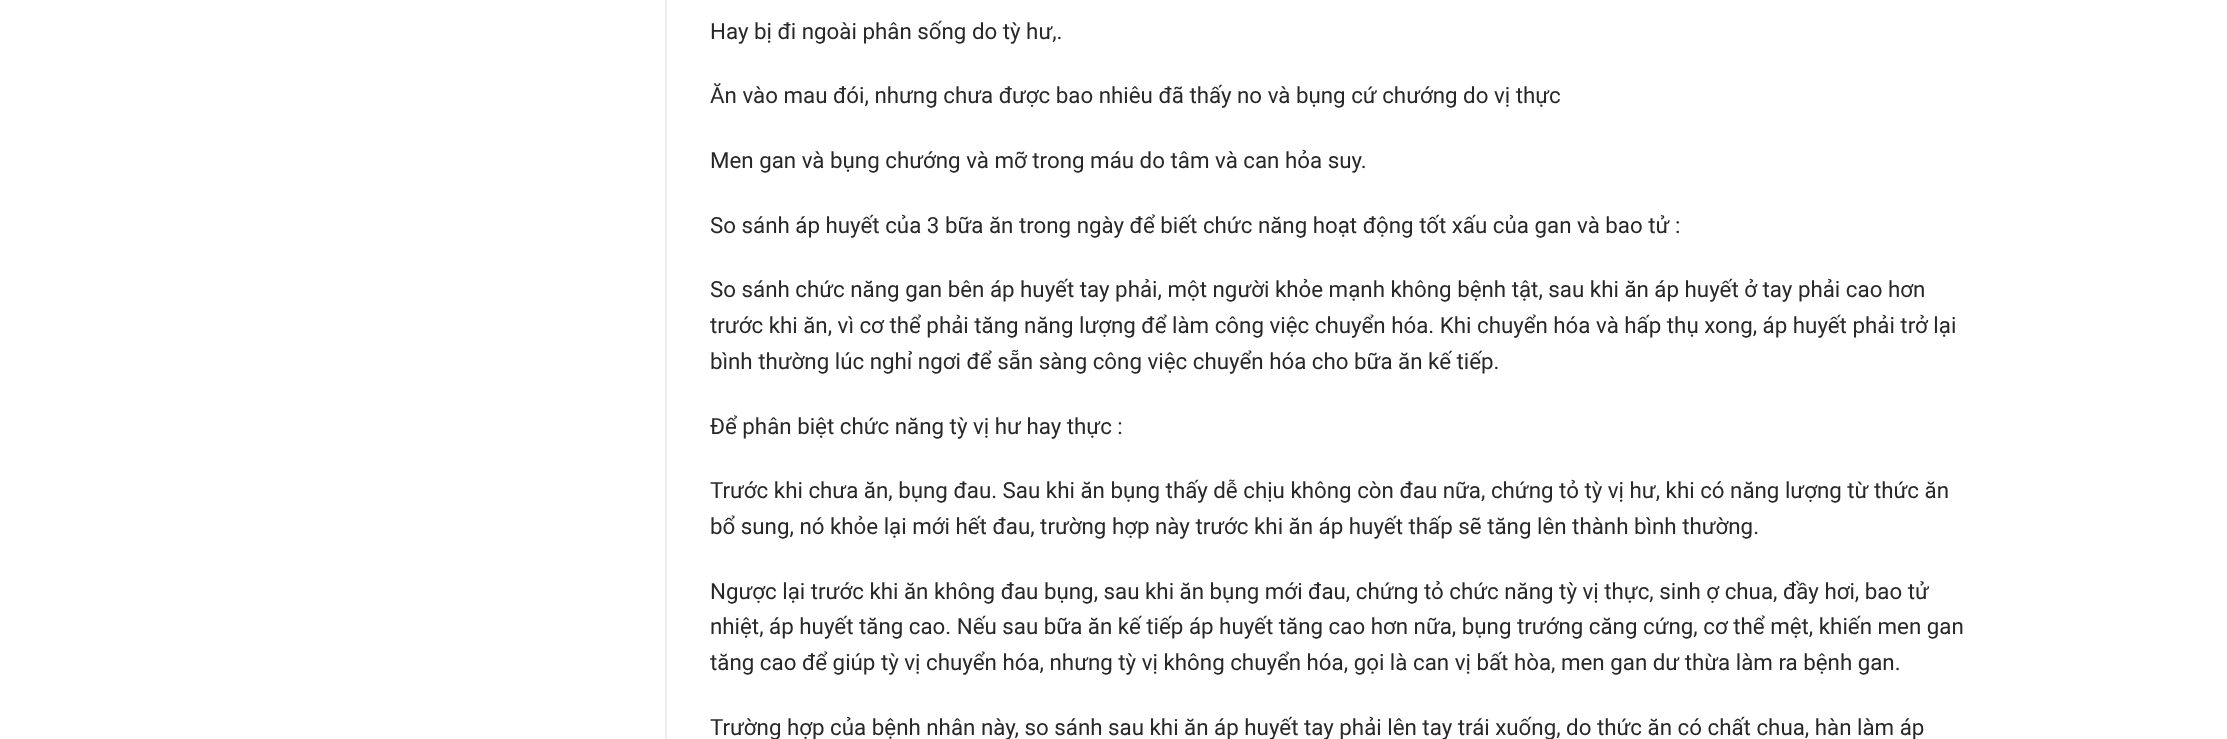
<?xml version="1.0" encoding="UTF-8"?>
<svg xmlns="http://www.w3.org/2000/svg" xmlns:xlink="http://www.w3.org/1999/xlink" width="2227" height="739">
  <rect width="100%" height="100%" fill="#ffffff" />
  <rect x="665" width="2" height="739" fill="#ececec" />
  <text x="710" y="39" style="font-family: Roboto; font-size: 22.32px; fill: #282828">Hay bị đi ngoài phân sống do tỳ hư,.</text>
  <text x="710" y="103" style="font-family: Roboto; font-size: 22.32px; fill: #282828">Ăn vào mau đói, nhưng chưa được bao nhiêu đã thấy no và bụng cứ chướng do vị thực</text>
  <text x="710" y="168" style="font-family: Roboto; font-size: 22.32px; fill: #282828">Men gan và bụng chướng và mỡ trong máu do tâm và can hỏa suy.</text>
  <text x="710" y="233" style="font-family: Roboto; font-size: 22.32px; fill: #282828">So sánh áp huyết của 3 bữa ăn trong ngày để biết chức năng hoạt động tốt xấu của gan và bao tử :</text>
  <text x="710" y="297" style="font-family: Roboto; font-size: 22.32px; fill: #282828">So sánh chức năng gan bên áp huyết tay phải, một người khỏe mạnh không bệnh tật, sau khi ăn áp huyết ở tay phải cao hơn</text>
  <text x="710" y="333" style="font-family: Roboto; font-size: 22.32px; fill: #282828">trước khi ăn, vì cơ thể phải tăng năng lượng để làm công việc chuyển hóa. Khi chuyển hóa và hấp thụ xong, áp huyết phải trở lại</text>
  <text x="710" y="369" style="font-family: Roboto; font-size: 22.32px; fill: #282828">bình thường lúc nghỉ ngơi để sẵn sàng công việc chuyển hóa cho bữa ăn kế tiếp.</text>
  <text x="710" y="434" style="font-family: Roboto; font-size: 22.32px; fill: #282828">Để phân biệt chức năng tỳ vị hư hay thực :</text>
  <text x="710" y="498" style="font-family: Roboto; font-size: 22.32px; fill: #282828">Trước khi chưa ăn, bụng đau. Sau khi ăn bụng thấy dễ chịu không còn đau nữa, chứng tỏ tỳ vị hư, khi có năng lượng từ thức ăn</text>
  <text x="710" y="534" style="font-family: Roboto; font-size: 22.32px; fill: #282828">bổ sung, nó khỏe lại mới hết đau, trường hợp này trước khi ăn áp huyết thấp sẽ tăng lên thành bình thường.</text>
  <text x="710" y="599" style="font-family: Roboto; font-size: 22.32px; fill: #282828">Ngược lại trước khi ăn không đau bụng, sau khi ăn bụng mới đau, chứng tỏ chức năng tỳ vị thực, sinh ợ chua, đầy hơi, bao tử</text>
  <text x="710" y="634" style="font-family: Roboto; font-size: 22.32px; fill: #282828">nhiệt, áp huyết tăng cao. Nếu sau bữa ăn kế tiếp áp huyết tăng cao hơn nữa, bụng trướng căng cứng, cơ thể mệt, khiến men gan</text>
  <text x="710" y="670" style="font-family: Roboto; font-size: 22.32px; fill: #282828">tăng cao để giúp tỳ vị chuyển hóa, nhưng tỳ vị không chuyển hóa, gọi là can vị bất hòa, men gan dư thừa làm ra bệnh gan.</text>
  <text x="710" y="735" style="font-family: Roboto; font-size: 22.32px; fill: #282828">Trường hợp của bệnh nhân này, so sánh sau khi ăn áp huyết tay phải lên tay trái xuống, do thức ăn có chất chua, hàn làm áp</text>
</svg>
